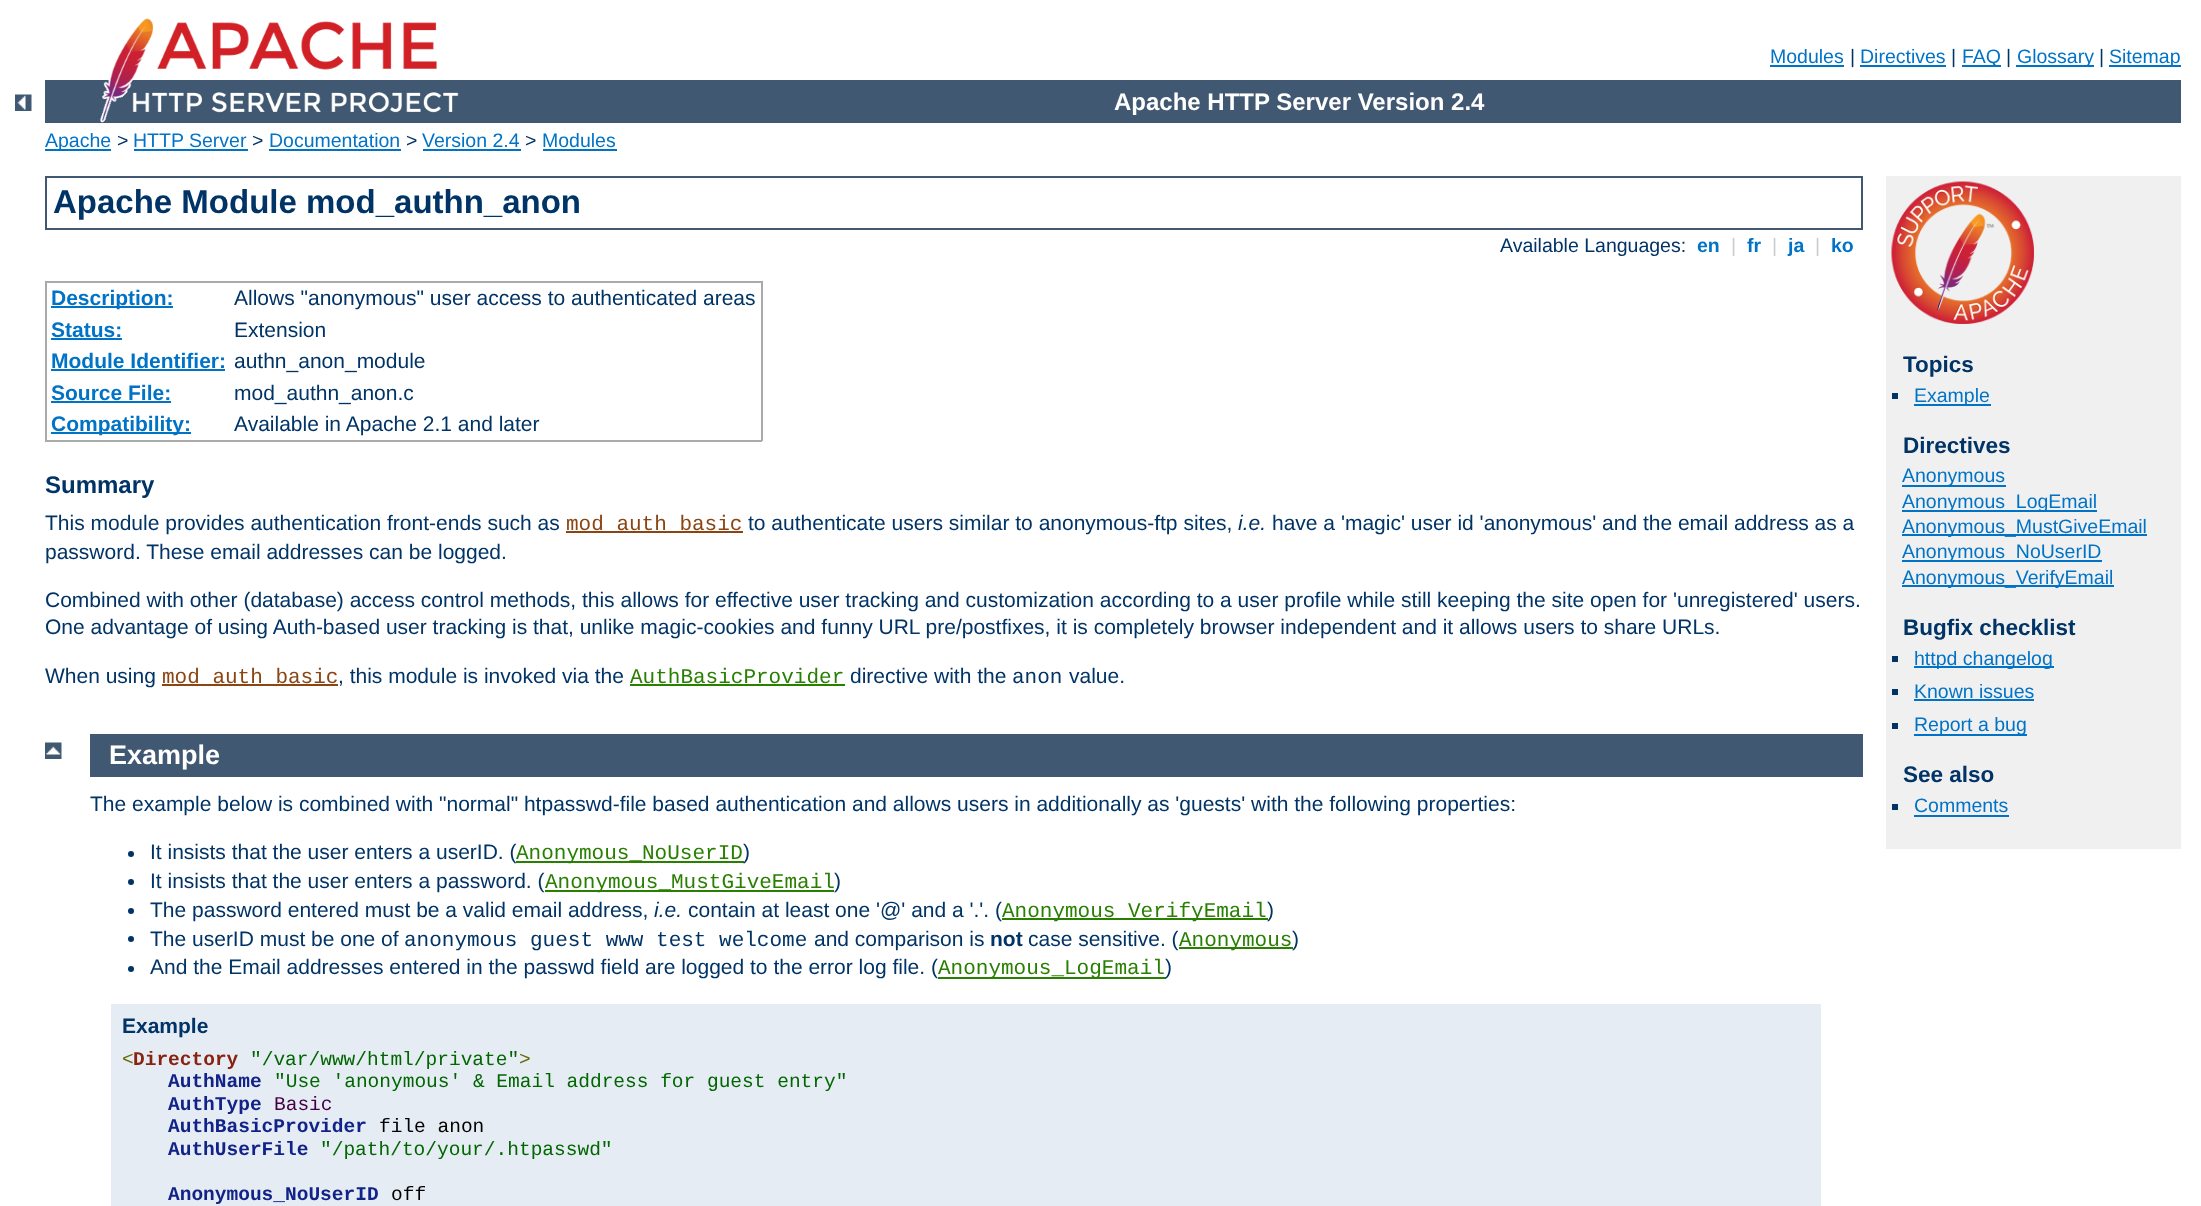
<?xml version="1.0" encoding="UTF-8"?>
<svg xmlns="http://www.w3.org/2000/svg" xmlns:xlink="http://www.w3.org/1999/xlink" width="2201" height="1206">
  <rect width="100%" height="100%" fill="#ffffff" />
  <image x="15" y="94" width="17" height="17" xlink:href="image1.png" />
  <rect x="45" y="80" width="2136" height="43" fill="#405871" />
  <image x="100" y="18" width="359" height="105" xlink:href="image2.png" />
  <rect x="1770" y="65" width="74" height="2" fill="#0073c7" />
  <rect x="1860" y="65" width="86" height="2" fill="#0073c7" />
  <rect x="1962" y="65" width="39" height="2" fill="#0073c7" />
  <rect x="2016" y="65" width="78" height="2" fill="#0073c7" />
  <rect x="2109" y="65" width="72" height="2" fill="#0073c7" />
  <rect x="45" y="149" width="66" height="2" fill="#0073c7" />
  <rect x="134" y="149" width="114" height="2" fill="#0073c7" />
  <rect x="269" y="149" width="132" height="2" fill="#0073c7" />
  <rect x="423" y="149" width="98" height="2" fill="#0073c7" />
  <rect x="543" y="149" width="74" height="2" fill="#0073c7" />
  <rect x="46" y="177" width="1816" height="52" fill="none" stroke="#405871" stroke-width="2" />
  <rect x="45" y="281" width="717" height="2" fill="#aaaaaa" />
  <rect x="761" y="281" width="2" height="160" fill="#aaaaaa" />
  <rect x="45" y="440" width="717" height="2" fill="#aaaaaa" />
  <rect x="45" y="281" width="2" height="160" fill="#aaaaaa" />
  <rect x="51" y="306" width="122" height="2" fill="#0073c7" />
  <rect x="51" y="338" width="71" height="2" fill="#0073c7" />
  <rect x="51" y="369" width="174" height="2" fill="#0073c7" />
  <rect x="51" y="401" width="120" height="2" fill="#0073c7" />
  <rect x="51" y="432" width="140" height="2" fill="#0073c7" />
  <rect x="566" y="531" width="177" height="2" fill="#8b4513" />
  <rect x="162" y="684" width="176" height="2" fill="#8b4513" />
  <rect x="630" y="684" width="215" height="2" fill="#287f00" />
  <rect x="1886" y="176" width="295" height="673" fill="#f0f0f0" />
  <image x="1891" y="181" width="143" height="143" xlink:href="image3.png" />
  <rect x="1892" y="393" width="6" height="6" fill="#003366" />
  <rect x="1914" y="404" width="77" height="2" fill="#0073c7" />
  <rect x="1902" y="485" width="104" height="2" fill="#0073c7" />
  <rect x="1902" y="510" width="195" height="2" fill="#0073c7" />
  <rect x="1902" y="534" width="245" height="2" fill="#0073c7" />
  <rect x="1902" y="560" width="200" height="2" fill="#0073c7" />
  <rect x="1902" y="585" width="212" height="2" fill="#0073c7" />
  <rect x="1892" y="656" width="6" height="6" fill="#003366" />
  <rect x="1914" y="666" width="140" height="2" fill="#0073c7" />
  <rect x="1892" y="689" width="6" height="6" fill="#003366" />
  <rect x="1914" y="699" width="120" height="2" fill="#0073c7" />
  <rect x="1892" y="723" width="6" height="6" fill="#003366" />
  <rect x="1914" y="734" width="113" height="2" fill="#0073c7" />
  <rect x="1892" y="804" width="6" height="6" fill="#003366" />
  <rect x="1914" y="815" width="95" height="2" fill="#0073c7" />
  <image x="45" y="742" width="17" height="17" xlink:href="image4.png" />
  <rect x="90" y="734" width="1773" height="43" fill="#405871" />
  <circle cx="131" cy="854" r="3" fill="#003366" />
  <circle cx="131" cy="882" r="3" fill="#003366" />
  <rect x="545" y="890" width="289" height="2" fill="#287f00" />
  <circle cx="131" cy="911" r="3" fill="#003366" />
  <rect x="1002" y="918" width="266" height="2" fill="#287f00" />
  <circle cx="131" cy="939" r="3" fill="#003366" />
  <rect x="1179" y="947" width="114" height="2" fill="#287f00" />
  <circle cx="131" cy="969" r="3" fill="#003366" />
  <rect x="938" y="977" width="228" height="2" fill="#287f00" />
  <rect x="111" y="1004" width="1710" height="202" fill="#e5ecf3" />
  <text x="1770" y="63" style="font-family: Liberation Sans; font-size: 19.5px; fill: #0073c7">Modules</text>
  <text x="1850" y="63" style="font-family: Liberation Sans; font-size: 19.5px; fill: #003366">|</text>
  <text x="1860" y="63" style="font-family: Liberation Sans; font-size: 19.5px; fill: #0073c7">Directives</text>
  <text x="1951" y="63" style="font-family: Liberation Sans; font-size: 19.5px; fill: #003366">|</text>
  <text x="1962" y="63" style="font-family: Liberation Sans; font-size: 19.5px; fill: #0073c7">FAQ</text>
  <text x="2006" y="63" style="font-family: Liberation Sans; font-size: 19.5px; fill: #003366">|</text>
  <text x="2017" y="63" style="font-family: Liberation Sans; font-size: 19.5px; fill: #0073c7">Glossary</text>
  <text x="2099" y="63" style="font-family: Liberation Sans; font-size: 19.5px; fill: #003366">|</text>
  <text x="2109" y="63" style="font-family: Liberation Sans; font-size: 19.5px; fill: #0073c7">Sitemap</text>
  <text x="1114" y="110" style="font-family: Liberation Sans; font-size: 24px; font-weight: bold; fill: #ffffff">Apache HTTP Server Version 2.4</text>
  <text x="45" y="147" style="font-family: Liberation Sans; font-size: 19.5px; fill: #0073c7">Apache</text>
  <text x="117" y="147" style="font-family: Liberation Sans; font-size: 19.5px; fill: #003366">&gt;</text>
  <text x="133" y="147" style="font-family: Liberation Sans; font-size: 19.5px; fill: #0073c7">HTTP Server</text>
  <text x="252" y="147" style="font-family: Liberation Sans; font-size: 19.5px; fill: #003366">&gt;</text>
  <text x="269" y="147" style="font-family: Liberation Sans; font-size: 19.5px; fill: #0073c7">Documentation</text>
  <text x="406" y="147" style="font-family: Liberation Sans; font-size: 19.5px; fill: #003366">&gt;</text>
  <text x="422" y="147" style="font-family: Liberation Sans; font-size: 19.5px; fill: #0073c7">Version 2.4</text>
  <text x="525" y="147" style="font-family: Liberation Sans; font-size: 19.5px; fill: #003366">&gt;</text>
  <text x="542" y="147" style="font-family: Liberation Sans; font-size: 19.5px; fill: #0073c7">Modules</text>
  <text x="53" y="213" style="font-family: Liberation Sans; font-size: 33px; font-weight: bold; fill: #003366">Apache Module mod_authn_anon</text>
  <text x="1500" y="252" style="font-family: Liberation Sans; font-size: 19.5px; fill: #003366">Available Languages:</text>
  <text x="1697" y="252" style="font-family: Liberation Sans; font-size: 19.5px; font-weight: bold; fill: #0073c7">en</text>
  <text x="1731" y="252" style="font-family: Liberation Sans; font-size: 19.5px; fill: #cccccc">|</text>
  <text x="1747" y="252" style="font-family: Liberation Sans; font-size: 19.5px; font-weight: bold; fill: #0073c7">fr</text>
  <text x="1772" y="252" style="font-family: Liberation Sans; font-size: 19.5px; fill: #cccccc">|</text>
  <text x="1788" y="252" style="font-family: Liberation Sans; font-size: 19.5px; font-weight: bold; fill: #0073c7">ja</text>
  <text x="1815" y="252" style="font-family: Liberation Sans; font-size: 19.5px; fill: #cccccc">|</text>
  <text x="1831" y="252" style="font-family: Liberation Sans; font-size: 19.5px; font-weight: bold; fill: #0073c7">ko</text>
  <text x="51" y="305" style="font-family: Liberation Sans; font-size: 21px; font-weight: bold; fill: #0073c7">Description:</text>
  <text x="234" y="305" style="font-family: Liberation Sans; font-size: 21px; fill: #003366">Allows "anonymous" user access to authenticated areas</text>
  <text x="51" y="337" style="font-family: Liberation Sans; font-size: 21px; font-weight: bold; fill: #0073c7">Status:</text>
  <text x="234" y="337" style="font-family: Liberation Sans; font-size: 21px; fill: #003366">Extension</text>
  <text x="51" y="368" style="font-family: Liberation Sans; font-size: 21px; font-weight: bold; fill: #0073c7">Module Identifier:</text>
  <text x="234" y="368" style="font-family: Liberation Sans; font-size: 21px; fill: #003366">authn_anon_module</text>
  <text x="51" y="400" style="font-family: Liberation Sans; font-size: 21px; font-weight: bold; fill: #0073c7">Source File:</text>
  <text x="234" y="400" style="font-family: Liberation Sans; font-size: 21px; fill: #003366">mod_authn_anon.c</text>
  <text x="51" y="431" style="font-family: Liberation Sans; font-size: 21px; font-weight: bold; fill: #0073c7">Compatibility:</text>
  <text x="234" y="431" style="font-family: Liberation Sans; font-size: 21px; fill: #003366">Available in Apache 2.1 and later</text>
  <text x="45" y="493" style="font-family: Liberation Sans; font-size: 24px; font-weight: bold; fill: #003366">Summary</text>
  <text x="45" y="530" style="font-family: Liberation Sans; font-size: 21px; fill: #003366">This module provides authentication front-ends such as</text>
  <text x="566" y="530" style="font-family: Liberation Mono; font-size: 21px; fill: #8b4513">mod_auth_basic</text>
  <text x="748" y="530" style="font-family: Liberation Sans; font-size: 21px; fill: #003366">to authenticate users similar to anonymous-ftp sites,</text>
  <text x="1238" y="530" style="font-family: Liberation Sans; font-size: 21px; font-style: italic; fill: #003366">i.e.</text>
  <text x="1272" y="530" style="font-family: Liberation Sans; font-size: 21px; fill: #003366">have a 'magic' user id 'anonymous' and the email address as a</text>
  <text x="45" y="559" style="font-family: Liberation Sans; font-size: 21px; fill: #003366">password. These email addresses can be logged.</text>
  <text x="45" y="607" style="font-family: Liberation Sans; font-size: 21px; fill: #003366">Combined with other (database) access control methods, this allows for effective user tracking and customization according to a user profile while still keeping the site open for 'unregistered' users.</text>
  <text x="45" y="634" style="font-family: Liberation Sans; font-size: 21px; fill: #003366">One advantage of using Auth-based user tracking is that, unlike magic-cookies and funny URL pre/postfixes, it is completely browser independent and it allows users to share URLs.</text>
  <text x="45" y="683" style="font-family: Liberation Sans; font-size: 21px; fill: #003366">When using</text>
  <text x="162" y="683" style="font-family: Liberation Mono; font-size: 21px; fill: #8b4513">mod_auth_basic</text>
  <text x="338" y="683" style="font-family: Liberation Sans; font-size: 21px; fill: #003366">, this module is invoked via the</text>
  <text x="630" y="683" style="font-family: Liberation Mono; font-size: 21px; fill: #287f00">AuthBasicProvider</text>
  <text x="850" y="683" style="font-family: Liberation Sans; font-size: 21px; fill: #003366">directive with the</text>
  <text x="1012" y="683" style="font-family: Liberation Mono; font-size: 21px; fill: #003366">anon</text>
  <text x="1069" y="683" style="font-family: Liberation Sans; font-size: 21px; fill: #003366">value.</text>
  <text x="1903" y="372" style="font-family: Liberation Sans; font-size: 22.5px; font-weight: bold; fill: #003366">Topics</text>
  <text x="1914" y="402" style="font-family: Liberation Sans; font-size: 19.5px; fill: #0073c7">Example</text>
  <text x="1903" y="453" style="font-family: Liberation Sans; font-size: 22.5px; font-weight: bold; fill: #003366">Directives</text>
  <text x="1902" y="482" style="font-family: Liberation Sans; font-size: 19.5px; fill: #0073c7">Anonymous</text>
  <text x="1902" y="508" style="font-family: Liberation Sans; font-size: 19.5px; fill: #0073c7">Anonymous_LogEmail</text>
  <text x="1902" y="533" style="font-family: Liberation Sans; font-size: 19.5px; fill: #0073c7">Anonymous_MustGiveEmail</text>
  <text x="1902" y="558" style="font-family: Liberation Sans; font-size: 19.5px; fill: #0073c7">Anonymous_NoUserID</text>
  <text x="1902" y="584" style="font-family: Liberation Sans; font-size: 19.5px; fill: #0073c7">Anonymous_VerifyEmail</text>
  <text x="1903" y="635" style="font-family: Liberation Sans; font-size: 22.5px; font-weight: bold; fill: #003366">Bugfix checklist</text>
  <text x="1914" y="665" style="font-family: Liberation Sans; font-size: 19.5px; fill: #0073c7">httpd changelog</text>
  <text x="1914" y="698" style="font-family: Liberation Sans; font-size: 19.5px; fill: #0073c7">Known issues</text>
  <text x="1914" y="731" style="font-family: Liberation Sans; font-size: 19.5px; fill: #0073c7">Report a bug</text>
  <text x="1903" y="782" style="font-family: Liberation Sans; font-size: 22.5px; font-weight: bold; fill: #003366">See also</text>
  <text x="1914" y="812" style="font-family: Liberation Sans; font-size: 19.5px; fill: #0073c7">Comments</text>
  <text x="109" y="764" style="font-family: Liberation Sans; font-size: 27px; font-weight: bold; fill: #ffffff">Example</text>
  <text x="90" y="811" style="font-family: Liberation Sans; font-size: 21px; fill: #003366">The example below is combined with "normal" htpasswd-file based authentication and allows users in additionally as 'guests' with the following properties:</text>
  <text x="150" y="859" style="font-family: Liberation Sans; font-size: 21px; fill: #003366">It insists that the user enters a userID. (</text>
  <rect x="516" y="861" width="228" height="2" fill="#287f00" />
  <text x="516" y="859" style="font-family: Liberation Mono; font-size: 21px; fill: #287f00">Anonymous_NoUserID</text>
  <text x="743" y="859" style="font-family: Liberation Sans; font-size: 21px; fill: #003366">)</text>
  <text x="150" y="888" style="font-family: Liberation Sans; font-size: 21px; fill: #003366">It insists that the user enters a password. (</text>
  <text x="545" y="888" style="font-family: Liberation Mono; font-size: 21px; fill: #287f00">Anonymous_MustGiveEmail</text>
  <text x="834" y="888" style="font-family: Liberation Sans; font-size: 21px; fill: #003366">)</text>
  <text x="150" y="917" style="font-family: Liberation Sans; font-size: 21px; fill: #003366">The password entered must be a valid email address,</text>
  <text x="654" y="917" style="font-family: Liberation Sans; font-size: 21px; font-style: italic; fill: #003366">i.e.</text>
  <text x="688" y="917" style="font-family: Liberation Sans; font-size: 21px; fill: #003366">contain at least one '@' and a '.'. (</text>
  <text x="1002" y="917" style="font-family: Liberation Mono; font-size: 21px; fill: #287f00">Anonymous_VerifyEmail</text>
  <text x="1267" y="917" style="font-family: Liberation Sans; font-size: 21px; fill: #003366">)</text>
  <text x="150" y="946" style="font-family: Liberation Sans; font-size: 21px; fill: #003366">The userID must be one of</text>
  <text x="404" y="946" style="font-family: Liberation Mono; font-size: 21px; fill: #003366">anonymous guest www test welcome</text>
  <text x="814" y="946" style="font-family: Liberation Sans; font-size: 21px; fill: #003366">and comparison is</text>
  <text x="990" y="946" style="font-family: Liberation Sans; font-size: 21px; font-weight: bold; fill: #003366">not</text>
  <text x="1028" y="946" style="font-family: Liberation Sans; font-size: 21px; fill: #003366">case sensitive. (</text>
  <text x="1179" y="946" style="font-family: Liberation Mono; font-size: 21px; fill: #287f00">Anonymous</text>
  <text x="1292" y="946" style="font-family: Liberation Sans; font-size: 21px; fill: #003366">)</text>
  <text x="150" y="974" style="font-family: Liberation Sans; font-size: 21px; fill: #003366">And the Email addresses entered in the passwd field are logged to the error log file. (</text>
  <text x="938" y="974" style="font-family: Liberation Mono; font-size: 21px; fill: #287f00">Anonymous_LogEmail</text>
  <text x="1165" y="974" style="font-family: Liberation Sans; font-size: 21px; fill: #003366">)</text>
  <text x="122" y="1033" style="font-family: Liberation Sans; font-size: 21px; font-weight: bold; fill: #003366">Example</text>
  <text x="122" y="1065" style="font-family: Liberation Mono; font-size: 19.5px; fill: #666600">&lt;</text>
  <text x="133" y="1065" style="font-family: Liberation Mono; font-size: 19.5px; font-weight: bold; fill: #882211">Directory</text>
  <text x="250" y="1065" style="font-family: Liberation Mono; font-size: 19.5px; fill: #006600">"/var/www/html/private"</text>
  <text x="519" y="1065" style="font-family: Liberation Mono; font-size: 19.5px; fill: #666600">&gt;</text>
  <text x="168" y="1087" style="font-family: Liberation Mono; font-size: 19.5px; font-weight: bold; fill: #112288">AuthName</text>
  <text x="274" y="1087" style="font-family: Liberation Mono; font-size: 19.5px; fill: #006600">"Use 'anonymous' &amp; Email address for guest entry"</text>
  <text x="168" y="1110" style="font-family: Liberation Mono; font-size: 19.5px; font-weight: bold; fill: #112288">AuthType</text>
  <text x="274" y="1110" style="font-family: Liberation Mono; font-size: 19.5px; fill: #440044">Basic</text>
  <text x="168" y="1132" style="font-family: Liberation Mono; font-size: 19.5px; font-weight: bold; fill: #112288">AuthBasicProvider</text>
  <text x="379" y="1132" style="font-family: Liberation Mono; font-size: 19.5px; fill: #000000">file anon</text>
  <text x="168" y="1155" style="font-family: Liberation Mono; font-size: 19.5px; font-weight: bold; fill: #112288">AuthUserFile</text>
  <text x="320" y="1155" style="font-family: Liberation Mono; font-size: 19.5px; fill: #006600">"/path/to/your/.htpasswd"</text>
  <text x="168" y="1200" style="font-family: Liberation Mono; font-size: 19.5px; font-weight: bold; fill: #112288">Anonymous_NoUserID</text>
  <text x="391" y="1200" style="font-family: Liberation Mono; font-size: 19.5px; fill: #000000">off</text>
</svg>
